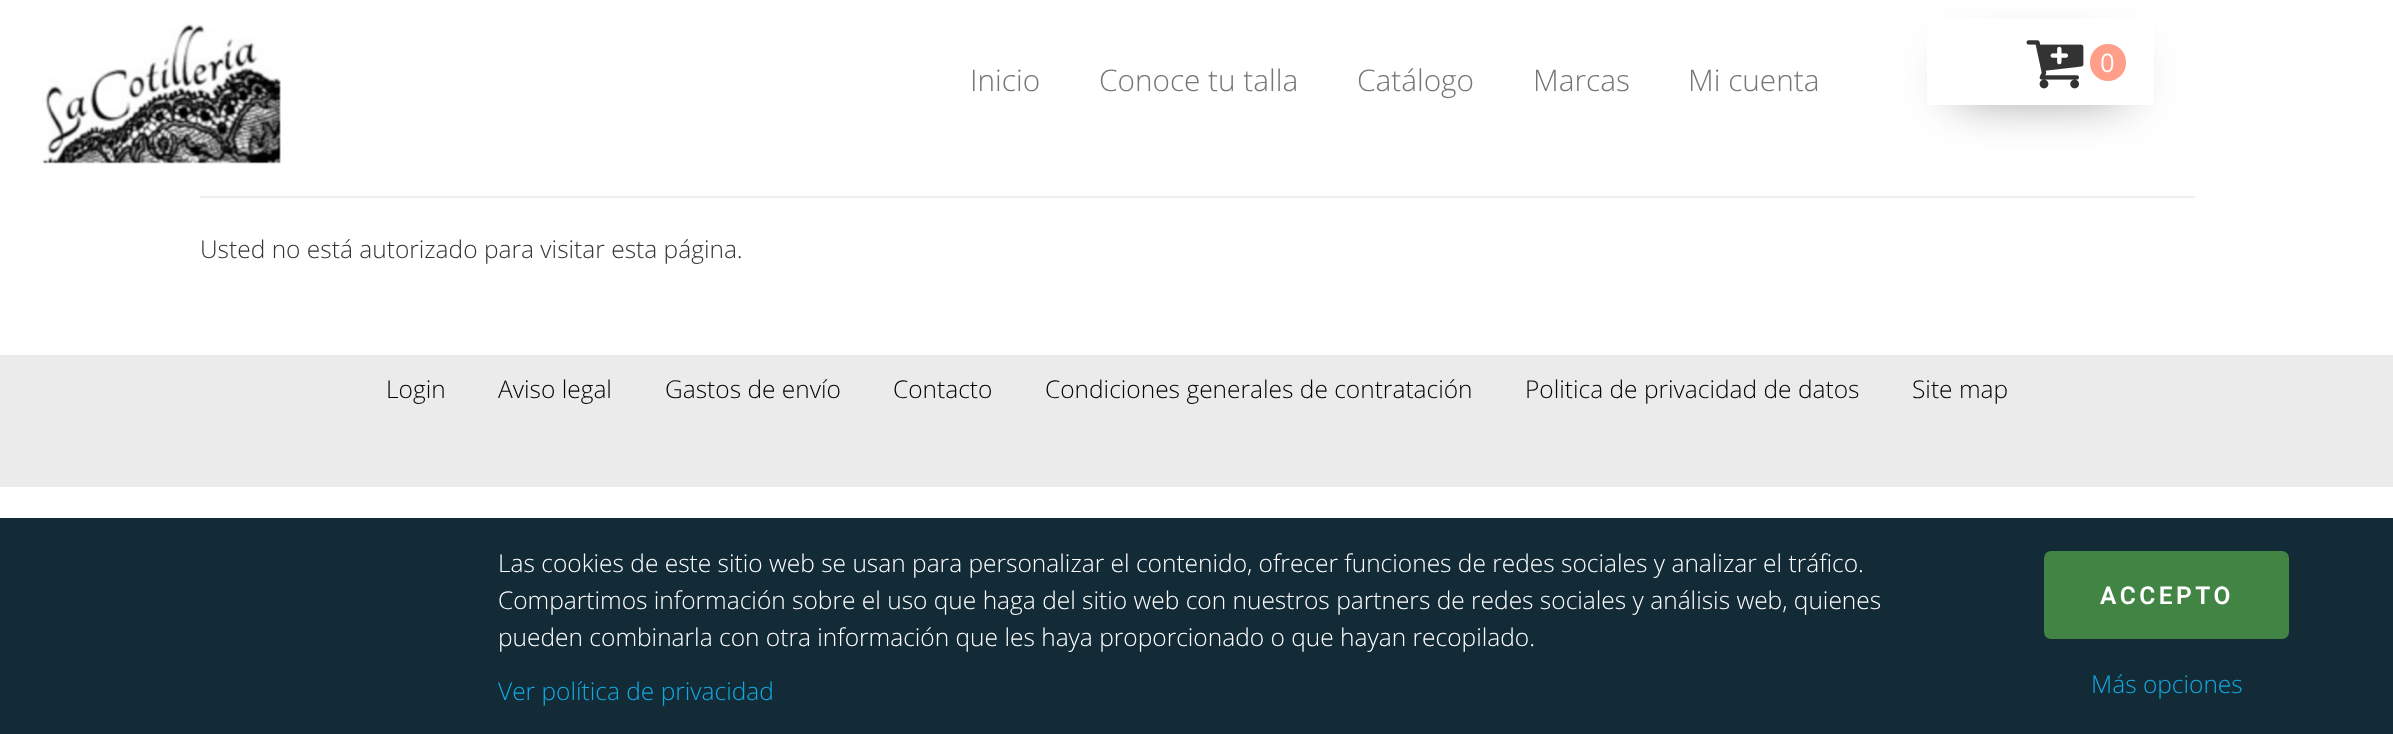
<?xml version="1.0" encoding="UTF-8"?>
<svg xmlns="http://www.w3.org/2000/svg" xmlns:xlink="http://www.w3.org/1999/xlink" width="2393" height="734">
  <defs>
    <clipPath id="clip1"><path d="M 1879 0 h 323 v 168 h -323 z m 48 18 h 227 v 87 h -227 z" clip-rule="evenodd" /></clipPath>
  </defs>
  <rect width="100%" height="100%" fill="#ffffff" />
  <image x="41" y="23" width="240" height="141" xlink:href="image1.png" />
  <g clip-path="url(#clip1)">
    <rect x="1958" y="65" width="165" height="24" fill="#333333" filter="blur(26px)" />
  </g>
  <image x="2026" y="40" width="58" height="49" xlink:href="image2.png" />
  <rect x="2090" y="44" width="36" height="37" rx="18" fill="#ff9f89" />
  <rect x="200" y="196" width="1995" height="2" fill="#eeeeee" />
  <rect y="355" width="2393" height="132" fill="#ebebeb" />
  <rect y="518" width="2393" height="216" fill="#132b37" />
  <rect x="2046" y="553" width="241" height="84" rx="5" fill="#418443" stroke="#418443" stroke-width="4" />
  <text x="2100" y="72" style="font-family: Open Sans; font-size: 24.5px; font-weight: bold; fill: #ffffff">0</text>
  <text x="970" y="91" style="font-family: Open Sans; font-size: 29.75px; font-weight: 300; fill: #767676">Inicio</text>
  <text x="1099" y="91" style="font-family: Open Sans; font-size: 29.75px; font-weight: 300; fill: #767676">Conoce tu talla</text>
  <text x="1357" y="91" style="font-family: Open Sans; font-size: 29.75px; font-weight: 300; fill: #767676">Catálogo</text>
  <text x="1533" y="91" style="font-family: Open Sans; font-size: 29.75px; font-weight: 300; fill: #767676">Marcas</text>
  <text x="1688" y="91" style="font-family: Open Sans; font-size: 29.75px; font-weight: 300; fill: #767676">Mi cuenta</text>
  <text x="200" y="258" style="font-family: Open Sans; font-size: 24.5px; font-weight: 300; fill: #333333">Usted no está autorizado para visitar esta página.</text>
  <text x="386" y="398" style="font-family: Open Sans; font-size: 24.5px; font-weight: 300; fill: #000000">Login</text>
  <text x="498" y="398" style="font-family: Open Sans; font-size: 24.5px; font-weight: 300; fill: #000000">Aviso legal</text>
  <text x="665" y="398" style="font-family: Open Sans; font-size: 24.5px; font-weight: 300; fill: #000000">Gastos de envío</text>
  <text x="893" y="398" style="font-family: Open Sans; font-size: 24.5px; font-weight: 300; fill: #000000">Contacto</text>
  <text x="1045" y="398" style="font-family: Open Sans; font-size: 24.5px; font-weight: 300; fill: #000000">Condiciones generales de contratación</text>
  <text x="1525" y="398" style="font-family: Open Sans; font-size: 24.5px; font-weight: 300; fill: #000000">Politica de privacidad de datos</text>
  <text x="1912" y="398" style="font-family: Open Sans; font-size: 24.5px; font-weight: 300; fill: #000000">Site map</text>
  <text x="498" y="572" style="font-family: Open Sans; font-size: 24.5px; font-weight: 300; fill: #ffffff">Las cookies de este sitio web se usan para personalizar el contenido, ofrecer funciones de redes sociales y analizar el tráfico.</text>
  <text x="498" y="609" style="font-family: Open Sans; font-size: 24.5px; font-weight: 300; fill: #ffffff">Compartimos información sobre el uso que haga del sitio web con nuestros partners de redes sociales y análisis web, quienes</text>
  <text x="498" y="646" style="font-family: Open Sans; font-size: 24.5px; font-weight: 300; fill: #ffffff">pueden combinarla con otra información que les haya proporcionado o que hayan recopilado.</text>
  <text x="498" y="700" style="font-family: Open Sans; font-size: 24.5px; font-weight: 300; fill: #14a9e0">Ver política de privacidad</text>
  <text x="2100" y="604" style="font-family: Roboto; font-size: 24.5px; font-weight: 600; letter-spacing: 3.5px; fill: #ffffff">ACCEPTO</text>
  <text x="2091" y="693" style="font-family: Open Sans; font-size: 24.5px; font-weight: 300; fill: #14a9e0">Más opciones</text>
</svg>
